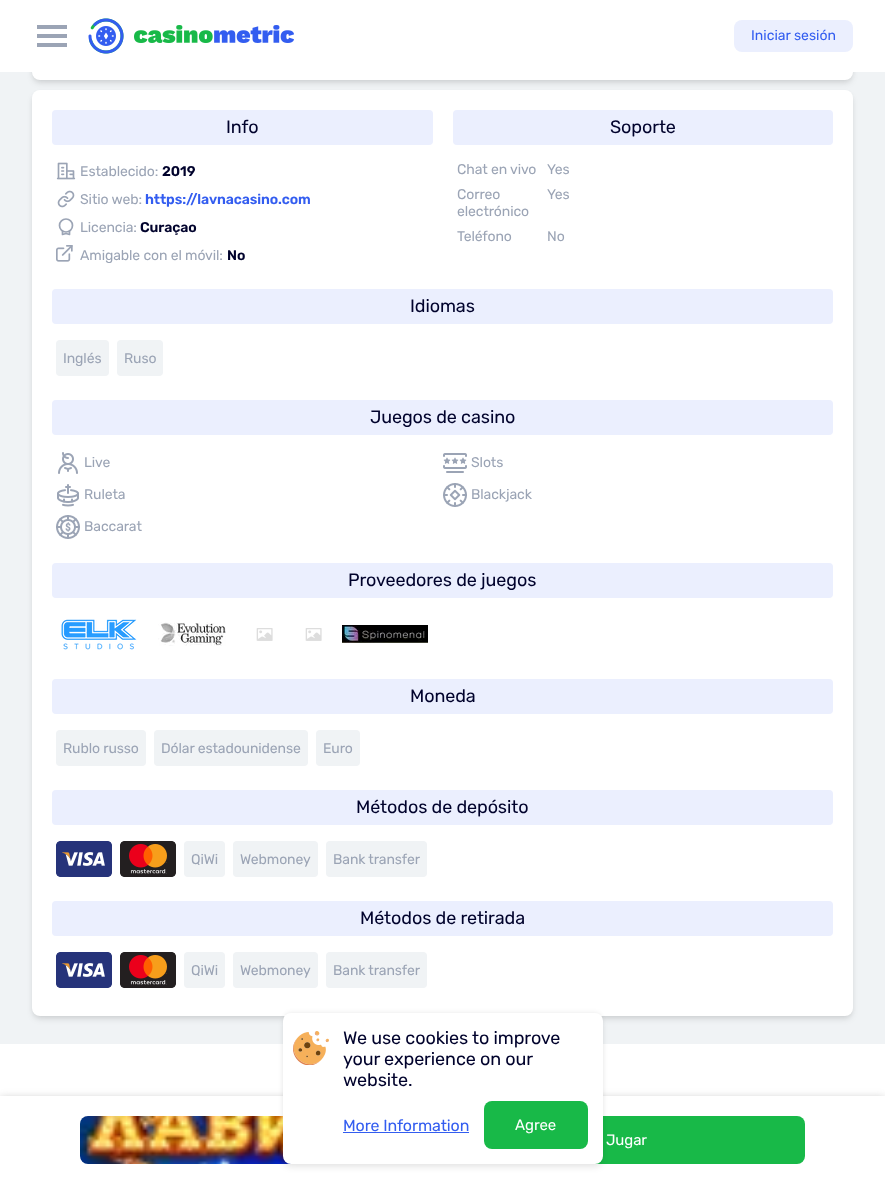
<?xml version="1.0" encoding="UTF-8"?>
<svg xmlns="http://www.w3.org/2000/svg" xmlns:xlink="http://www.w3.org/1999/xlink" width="885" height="1184">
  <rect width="100%" height="100%" fill="#f0f3f5" />
  <rect x="33" y="-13" width="819" height="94" rx="7" fill="#000000" fill-opacity="0.06" filter="blur(2px)" />
  <rect x="33" y="-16" width="819" height="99" rx="7" fill="#000000" fill-opacity="0.1" filter="blur(3px)" />
  <rect x="32" y="-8" width="821" height="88" rx="8" fill="#ffffff" />
  <rect width="885" height="72" fill="#ffffff" />
  <rect x="37" y="25" width="30" height="4" fill="#9ba4b5" />
  <rect x="37" y="43" width="30" height="4" fill="#9ba4b5" />
  <rect x="37" y="34" width="30" height="4" fill="#9ba4b5" />
  <image x="88" y="18" width="206" height="36" xlink:href="image1.png" />
  <rect x="734" y="20" width="119" height="32" rx="8" fill="#ebeffe" />
  <rect x="33" y="93" width="819" height="924" rx="7" fill="#000000" fill-opacity="0.06" filter="blur(2px)" />
  <rect x="33" y="95" width="819" height="924" rx="7" fill="#000000" fill-opacity="0.1" filter="blur(3px)" />
  <rect x="32" y="90" width="821" height="926" rx="8" fill="#ffffff" />
  <rect x="52" y="110" width="381" height="35" rx="4" fill="#ebeffe" />
  <image x="56" y="162" width="20" height="18" xlink:href="image2.png" />
  <image x="57" y="190" width="18" height="18" xlink:href="image3.png" />
  <circle cx="66" cy="225.5" r="6.5" fill="none" stroke="#9ba4b5" stroke-width="1.7" />
  <path d="M 62.5 231 v 3.5 l 3.5 -1 l 3.5 1 v -3.5" fill="none" stroke="#9ba4b5" stroke-width="1.7" stroke-linecap="round" stroke-linejoin="round" />
  <image x="56" y="245" width="17" height="17" xlink:href="image4.png" />
  <rect x="453" y="110" width="380" height="35" rx="4" fill="#ebeffe" />
  <rect x="52" y="289" width="781" height="35" rx="4" fill="#ebeffe" />
  <rect x="56" y="340" width="53" height="36" rx="4" fill="#f0f3f5" />
  <rect x="117" y="340" width="46" height="36" rx="4" fill="#f0f3f5" />
  <rect x="52" y="400" width="781" height="35" rx="4" fill="#ebeffe" />
  <image x="58" y="452" width="20" height="22" xlink:href="image5.png" />
  <image x="443" y="453" width="24" height="20" xlink:href="image6.png" />
  <image x="57" y="484" width="22" height="23" xlink:href="image7.png" />
  <image x="443" y="483" width="24" height="24" xlink:href="image8.png" />
  <image x="56" y="515" width="24" height="24" xlink:href="image9.png" />
  <rect x="52" y="563" width="781" height="35" rx="4" fill="#ebeffe" />
  <image x="61" y="619" width="76" height="31" xlink:href="image10.png" />
  <image x="158" y="622" width="68" height="24" xlink:href="image11.png" />
  <image x="256" y="628" width="17" height="13" xlink:href="image12.png" />
  <image x="305" y="628" width="17" height="13" xlink:href="image12.png" />
  <image x="342" y="625" width="86" height="18" xlink:href="image13.png" />
  <rect x="52" y="679" width="781" height="35" rx="4" fill="#ebeffe" />
  <rect x="56" y="730" width="90" height="36" rx="4" fill="#f0f3f5" />
  <rect x="154" y="730" width="154" height="36" rx="4" fill="#f0f3f5" />
  <rect x="316" y="730" width="44" height="36" rx="4" fill="#f0f3f5" />
  <rect x="52" y="790" width="781" height="35" rx="4" fill="#ebeffe" />
  <image x="56" y="841" width="56" height="36" xlink:href="image14.png" />
  <image x="120" y="841" width="56" height="36" xlink:href="image15.png" />
  <rect x="184" y="841" width="41" height="36" rx="4" fill="#f0f3f5" />
  <rect x="233" y="841" width="85" height="36" rx="4" fill="#f0f3f5" />
  <rect x="326" y="841" width="101" height="36" rx="4" fill="#f0f3f5" />
  <rect x="52" y="901" width="781" height="35" rx="4" fill="#ebeffe" />
  <image x="56" y="952" width="56" height="36" xlink:href="image14.png" />
  <image x="120" y="952" width="56" height="36" xlink:href="image15.png" />
  <rect x="184" y="952" width="41" height="36" rx="4" fill="#f0f3f5" />
  <rect x="233" y="952" width="85" height="36" rx="4" fill="#f0f3f5" />
  <rect x="326" y="952" width="101" height="36" rx="4" fill="#f0f3f5" />
  <rect y="1044" width="885" height="52" fill="#ffffff" />
  <rect y="1098" width="885" height="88" fill="#c3c3c3" filter="blur(4px)" />
  <rect y="1096" width="885" height="88" fill="#ffffff" />
  <image x="80" y="1116" width="211" height="48" xlink:href="image16.png" />
  <rect x="449" y="1116" width="356" height="48" rx="8" fill="#18b948" />
  <rect x="284" y="1012" width="318" height="149" rx="7" fill="#000000" fill-opacity="0.06" filter="blur(2px)" />
  <rect x="284" y="1018" width="318" height="149" rx="7" fill="#000000" fill-opacity="0.1" filter="blur(3px)" />
  <rect x="283" y="1013" width="320" height="151" rx="8" fill="#ffffff" />
  <image x="293" y="1031" width="36" height="34" xlink:href="image17.png" />
  <rect x="343" y="1132" width="126" height="1" fill="#335df0" />
  <rect x="484" y="1101" width="104" height="48" rx="8" fill="#18b948" />
  <text x="751" y="40" style="font-family: Rubik; font-size: 14px; fill: #335df0">Iniciar sesión</text>
  <text x="226" y="133" style="font-family: Rubik; font-size: 18px; letter-spacing: -0.1px; fill: #00022c">Info</text>
  <text x="80" y="176" style="font-family: Rubik; font-size: 14px; letter-spacing: -0.1px; fill: #9ba4b5">Establecido:</text>
  <text x="162" y="176" style="font-family: Rubik; font-size: 14px; font-weight: 600; letter-spacing: -0.1px; fill: #00022c">2019</text>
  <text x="80" y="204" style="font-family: Rubik; font-size: 14px; letter-spacing: -0.1px; fill: #9ba4b5">Sitio web:</text>
  <text x="145" y="204" style="font-family: Rubik; font-size: 14px; font-weight: 600; letter-spacing: -0.1px; fill: #335df0">https://lavnacasino.com</text>
  <text x="80" y="232" style="font-family: Rubik; font-size: 14px; letter-spacing: -0.1px; fill: #9ba4b5">Licencia:</text>
  <text x="140" y="232" style="font-family: Rubik; font-size: 14px; font-weight: 600; letter-spacing: -0.1px; fill: #00022c">Curaçao</text>
  <text x="80" y="260" style="font-family: Rubik; font-size: 14px; letter-spacing: -0.1px; fill: #9ba4b5">Amigable con el móvil:</text>
  <text x="227" y="260" style="font-family: Rubik; font-size: 14px; font-weight: 600; letter-spacing: -0.1px; fill: #00022c">No</text>
  <text x="610" y="133" style="font-family: Rubik; font-size: 18px; letter-spacing: -0.1px; fill: #00022c">Soporte</text>
  <text x="457" y="174" style="font-family: Rubik; font-size: 14px; letter-spacing: -0.1px; fill: #9ba4b5">Chat en vivo</text>
  <text x="547" y="174" style="font-family: Rubik; font-size: 14px; letter-spacing: -0.1px; fill: #9ba4b5">Yes</text>
  <text x="457" y="199" style="font-family: Rubik; font-size: 14px; letter-spacing: -0.1px; fill: #9ba4b5">Correo</text>
  <text x="457" y="216" style="font-family: Rubik; font-size: 14px; letter-spacing: -0.1px; fill: #9ba4b5">electrónico</text>
  <text x="547" y="199" style="font-family: Rubik; font-size: 14px; letter-spacing: -0.1px; fill: #9ba4b5">Yes</text>
  <text x="457" y="241" style="font-family: Rubik; font-size: 14px; letter-spacing: -0.1px; fill: #9ba4b5">Teléfono</text>
  <text x="547" y="241" style="font-family: Rubik; font-size: 14px; letter-spacing: -0.1px; fill: #9ba4b5">No</text>
  <text x="410" y="312" style="font-family: Rubik; font-size: 18px; letter-spacing: -0.1px; fill: #00022c">Idiomas</text>
  <text x="63" y="363" style="font-family: Rubik; font-size: 14px; letter-spacing: -0.1px; fill: #9ba4b5">Inglés</text>
  <text x="124" y="363" style="font-family: Rubik; font-size: 14px; letter-spacing: -0.1px; fill: #9ba4b5">Ruso</text>
  <text x="370" y="423" style="font-family: Rubik; font-size: 18px; letter-spacing: -0.1px; fill: #00022c">Juegos de casino</text>
  <text x="84" y="467" style="font-family: Rubik; font-size: 14px; letter-spacing: -0.1px; fill: #9ba4b5">Live</text>
  <text x="471" y="467" style="font-family: Rubik; font-size: 14px; letter-spacing: -0.1px; fill: #9ba4b5">Slots</text>
  <text x="84" y="499" style="font-family: Rubik; font-size: 14px; letter-spacing: -0.1px; fill: #9ba4b5">Ruleta</text>
  <text x="471" y="499" style="font-family: Rubik; font-size: 14px; letter-spacing: -0.1px; fill: #9ba4b5">Blackjack</text>
  <text x="84" y="531" style="font-family: Rubik; font-size: 14px; letter-spacing: -0.1px; fill: #9ba4b5">Baccarat</text>
  <text x="348" y="586" style="font-family: Rubik; font-size: 18px; letter-spacing: -0.1px; fill: #00022c">Proveedores de juegos</text>
  <text x="410" y="702" style="font-family: Rubik; font-size: 18px; letter-spacing: -0.1px; fill: #00022c">Moneda</text>
  <text x="63" y="753" style="font-family: Rubik; font-size: 14px; letter-spacing: -0.1px; fill: #9ba4b5">Rublo russo</text>
  <text x="161" y="753" style="font-family: Rubik; font-size: 14px; letter-spacing: -0.1px; fill: #9ba4b5">Dólar estadounidense</text>
  <text x="323" y="753" style="font-family: Rubik; font-size: 14px; letter-spacing: -0.1px; fill: #9ba4b5">Euro</text>
  <text x="356" y="813" style="font-family: Rubik; font-size: 18px; letter-spacing: -0.1px; fill: #00022c">Métodos de depósito</text>
  <text x="191" y="864" style="font-family: Rubik; font-size: 14px; letter-spacing: -0.1px; fill: #9ba4b5">QiWi</text>
  <text x="240" y="864" style="font-family: Rubik; font-size: 14px; letter-spacing: -0.1px; fill: #9ba4b5">Webmoney</text>
  <text x="333" y="864" style="font-family: Rubik; font-size: 14px; letter-spacing: -0.1px; fill: #9ba4b5">Bank transfer</text>
  <text x="360" y="924" style="font-family: Rubik; font-size: 18px; letter-spacing: -0.1px; fill: #00022c">Métodos de retirada</text>
  <text x="191" y="975" style="font-family: Rubik; font-size: 14px; letter-spacing: -0.1px; fill: #9ba4b5">QiWi</text>
  <text x="240" y="975" style="font-family: Rubik; font-size: 14px; letter-spacing: -0.1px; fill: #9ba4b5">Webmoney</text>
  <text x="333" y="975" style="font-family: Rubik; font-size: 14px; letter-spacing: -0.1px; fill: #9ba4b5">Bank transfer</text>
  <text x="606" y="1145" style="font-family: Rubik; font-size: 15px; letter-spacing: -0.1px; fill: #ffffff">Jugar</text>
  <text x="343" y="1044" style="font-family: Rubik; font-size: 18px; letter-spacing: -0.1px; fill: #00022c">We use cookies to improve</text>
  <text x="343" y="1065" style="font-family: Rubik; font-size: 18px; letter-spacing: -0.1px; fill: #00022c">your experience on our</text>
  <text x="343" y="1086" style="font-family: Rubik; font-size: 18px; letter-spacing: -0.1px; fill: #00022c">website.</text>
  <text x="343" y="1131" style="font-family: Rubik; font-size: 16px; letter-spacing: -0.1px; fill: #335df0">More Information</text>
  <text x="515" y="1130" style="font-family: Rubik; font-size: 15px; fill: #ffffff">Agree</text>
</svg>
